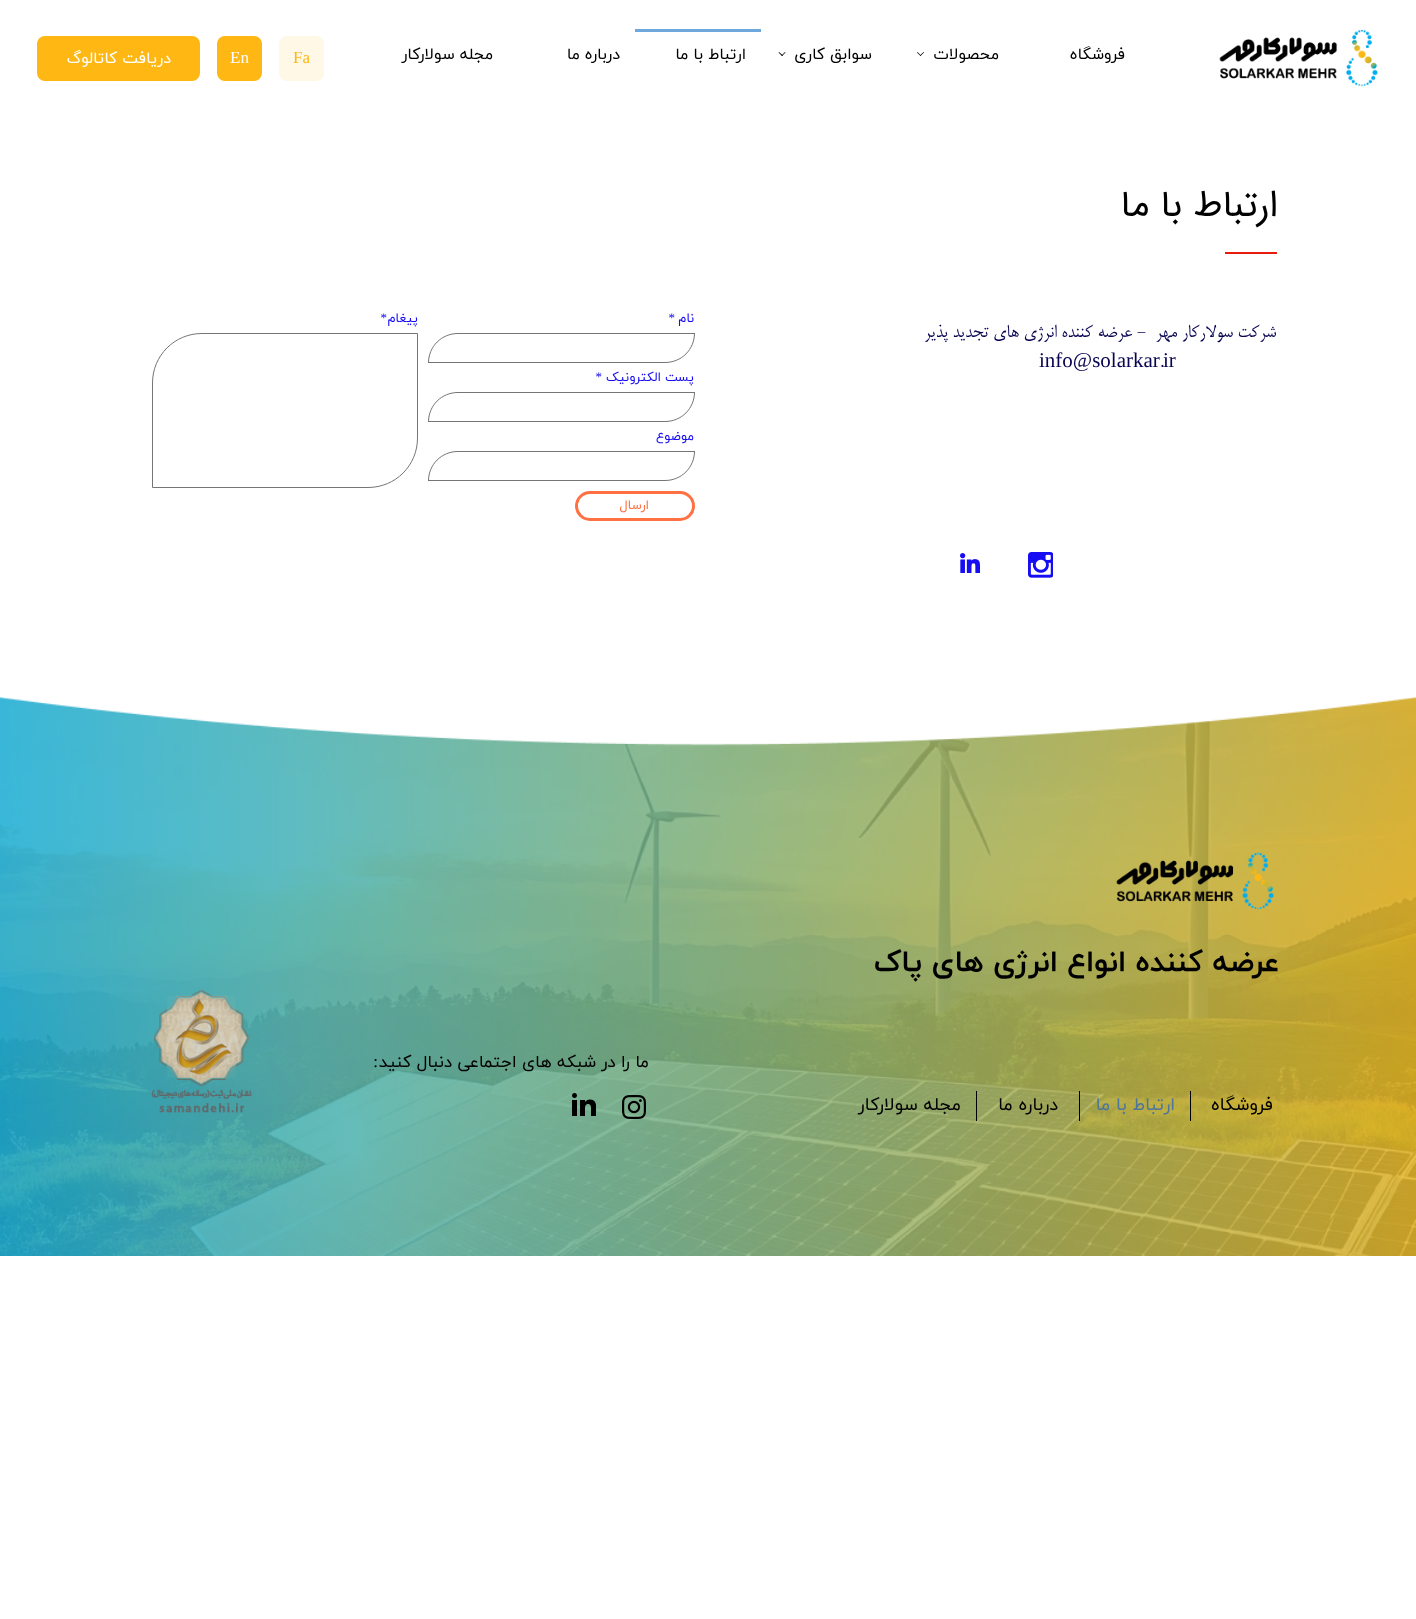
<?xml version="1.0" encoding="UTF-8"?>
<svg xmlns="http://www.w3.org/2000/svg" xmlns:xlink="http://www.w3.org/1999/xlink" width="1416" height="1619">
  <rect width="100%" height="100%" fill="#ffffff" />
  <image x="1219" y="29" width="159" height="58" xlink:href="image1.png" />
  <path d="M 923.5 52 l 0.5 0.5 l -3.5 3.5 l -0.5 -0.5 z" fill="#000000" />
  <path d="M 917.5 52 l 3.5 3.5 l -0.5 0.5 l -3.5 -3.5 z" fill="#000000" />
  <path d="M 785 52 l 0.5 0.5 l -3.5 3.5 l -0.5 -0.5 z" fill="#000000" />
  <path d="M 779 52 l 4 3.5 l -1 0.5 l -3.5 -3.5 z" fill="#000000" />
  <rect x="635" y="29" width="126" height="3" fill="#6fa8dc" />
  <rect x="279" y="36" width="45" height="45" rx="8" fill="#fff8e7" />
  <rect x="217" y="36" width="45" height="45" rx="8" fill="#feb713" />
  <rect x="37" y="36" width="163" height="45" rx="8" fill="#feb713" />
  <rect x="1225" y="252" width="52" height="2" fill="#e91a0e" />
  <path d="M 458 333.5 h 236.5 v -0.5 c 0 16.5 -13 29.5 -29.5 29.5 h -236.5 v 0.5 c 0 -16.5 13 -29.5 29.5 -29.5 z" fill="none" stroke="#757575" />
  <path d="M 458 392.5 h 236.5 v -0.5 c 0 16.5 -13 29.5 -29.5 29.5 h -236.5 v 0.5 c 0 -16.5 13 -29.5 29.5 -29.5 z" fill="none" stroke="#757575" />
  <path d="M 458 451.5 h 236.5 v -0.5 c 0 16.5 -13 29.5 -29.5 29.5 h -236.5 v 0.5 c 0 -16.5 13 -29.5 29.5 -29.5 z" fill="none" stroke="#757575" />
  <path d="M 202 333.5 h 215.5 v 104.5 c 0 27.5 -22 49.5 -49.5 49.5 h -215.5 v -104.5 c 0 -27.5 22 -49.5 49.5 -49.5 z" fill="none" stroke="#757575" />
  <rect x="576.5" y="492.5" width="117" height="27" rx="13.5" fill="none" stroke="#ff7043" stroke-width="3" />
  <image x="1028" y="552" width="25" height="26" xlink:href="image2.png" />
  <image x="960" y="553" width="20" height="20" xlink:href="image3.png" />
  <image x="0" y="696" width="1416" height="560" xlink:href="image4.png" />
  <image x="1116" y="852" width="158" height="58" xlink:href="image5.png" />
  <image x="151" y="989" width="101" height="124" xlink:href="image6.png" />
  <image x="622" y="1095" width="24" height="24" xlink:href="image7.png" />
  <image x="572" y="1093" width="24" height="23" xlink:href="image8.png" />
  <rect x="1190" y="1091" width="1" height="30" fill="#000000" />
  <rect x="1079" y="1091" width="1" height="30" fill="#000000" />
  <rect x="976" y="1091" width="1" height="30" fill="#000000" />
  <text x="1125" y="59" style="font-family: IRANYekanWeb; font-size: 16px; direction: rtl; fill: #000000">فروشگاه</text>
  <text x="999" y="59" style="font-family: IRANYekanWeb; font-size: 16px; direction: rtl; fill: #000000">محصولات</text>
  <text x="872" y="59" style="font-family: IRANYekanWeb; font-size: 16px; direction: rtl; fill: #000000">سوابق کاری</text>
  <text x="746" y="59" style="font-family: IRANYekanWeb; font-size: 16px; direction: rtl; fill: #000000">ارتباط با ما</text>
  <text x="620" y="59" style="font-family: IRANYekanWeb; font-size: 16px; direction: rtl; fill: #000000">درباره ما</text>
  <text x="493" y="59" style="font-family: IRANYekanWeb; font-size: 16px; direction: rtl; fill: #000000">مجله سولارکار</text>
  <text x="293" y="63" style="font-family: Liberation Serif; font-size: 17px; fill: #feb713">Fa</text>
  <text x="230" y="63" style="font-family: Liberation Serif; font-size: 17px; fill: #ffffff">En</text>
  <text x="171" y="63" style="font-family: IRANYekanWeb; font-size: 16px; direction: rtl; fill: #ffffff">دریافت کاتالوگ</text>
  <text x="1278" y="216" style="font-family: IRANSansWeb; font-size: 37px; direction: rtl; fill: #000000">ارتباط با ما</text>
  <text x="1276" y="337" style="font-family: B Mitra; font-size: 21px; direction: rtl; fill: #080451" xml:space="preserve">شرکت سولارکار مهر  - عرضه کننده انرژی های تجدید پذیر</text>
  <text x="1160" y="367" style="font-family: B Mitra; font-size: 21px; fill: #080451">.</text>
  <text x="1163" y="367" style="font-family: Liberation Serif; font-size: 21px; fill: #080451">ir</text>
  <text x="1039" y="367" style="font-family: Liberation Serif; font-size: 21px; fill: #080451">info@solarkar</text>
  <text x="694" y="322" style="font-family: IRANYekanWeb; font-size: 13px; direction: rtl; fill: #170df2">نام</text>
  <text x="675" y="322" style="font-family: Liberation Serif; font-size: 13px; direction: rtl; fill: #170df2">*</text>
  <text x="694" y="381" style="font-family: IRANYekanWeb; font-size: 13px; direction: rtl; fill: #170df2">پست الکترونیک</text>
  <text x="602" y="381" style="font-family: Liberation Serif; font-size: 13px; direction: rtl; fill: #170df2">*</text>
  <text x="694" y="440" style="font-family: IRANYekanWeb; font-size: 13px; direction: rtl; fill: #170df2">موضوع</text>
  <text x="418" y="322" style="font-family: IRANYekanWeb; font-size: 13px; direction: rtl; fill: #170df2">پیغام</text>
  <text x="387" y="322" style="font-family: Liberation Serif; font-size: 13px; direction: rtl; fill: #170df2">*</text>
  <text x="649" y="509" style="font-family: IRANYekanWeb; font-size: 13px; direction: rtl; fill: #ff7043">ارسال</text>
  <text x="1280" y="971" style="font-family: IRANYekanWeb; font-size: 30px; font-weight: bold; direction: rtl; fill: #000000">عرضه کننده انواع انرژی های پاک</text>
  <text x="649" y="1067" style="font-family: IRANYekanWeb; font-size: 17px; direction: rtl; fill: #000000">ما را در شبکه های اجتماعی دنبال کنید</text>
  <text x="378" y="1067" style="font-family: Liberation Serif; font-size: 17px; direction: rtl; fill: #000000">:</text>
  <text x="1273" y="1110" style="font-family: IRANYekanWeb; font-size: 18px; direction: rtl; fill: #000000">فروشگاه</text>
  <text x="1175" y="1110" style="font-family: IRANYekanWeb; font-size: 18px; direction: rtl; fill: #4e769b">ارتباط با ما</text>
  <text x="1058" y="1110" style="font-family: IRANYekanWeb; font-size: 18px; direction: rtl; fill: #000000">درباره ما</text>
  <text x="961" y="1110" style="font-family: IRANYekanWeb; font-size: 18px; direction: rtl; fill: #000000">مجله سولارکار</text>
</svg>
